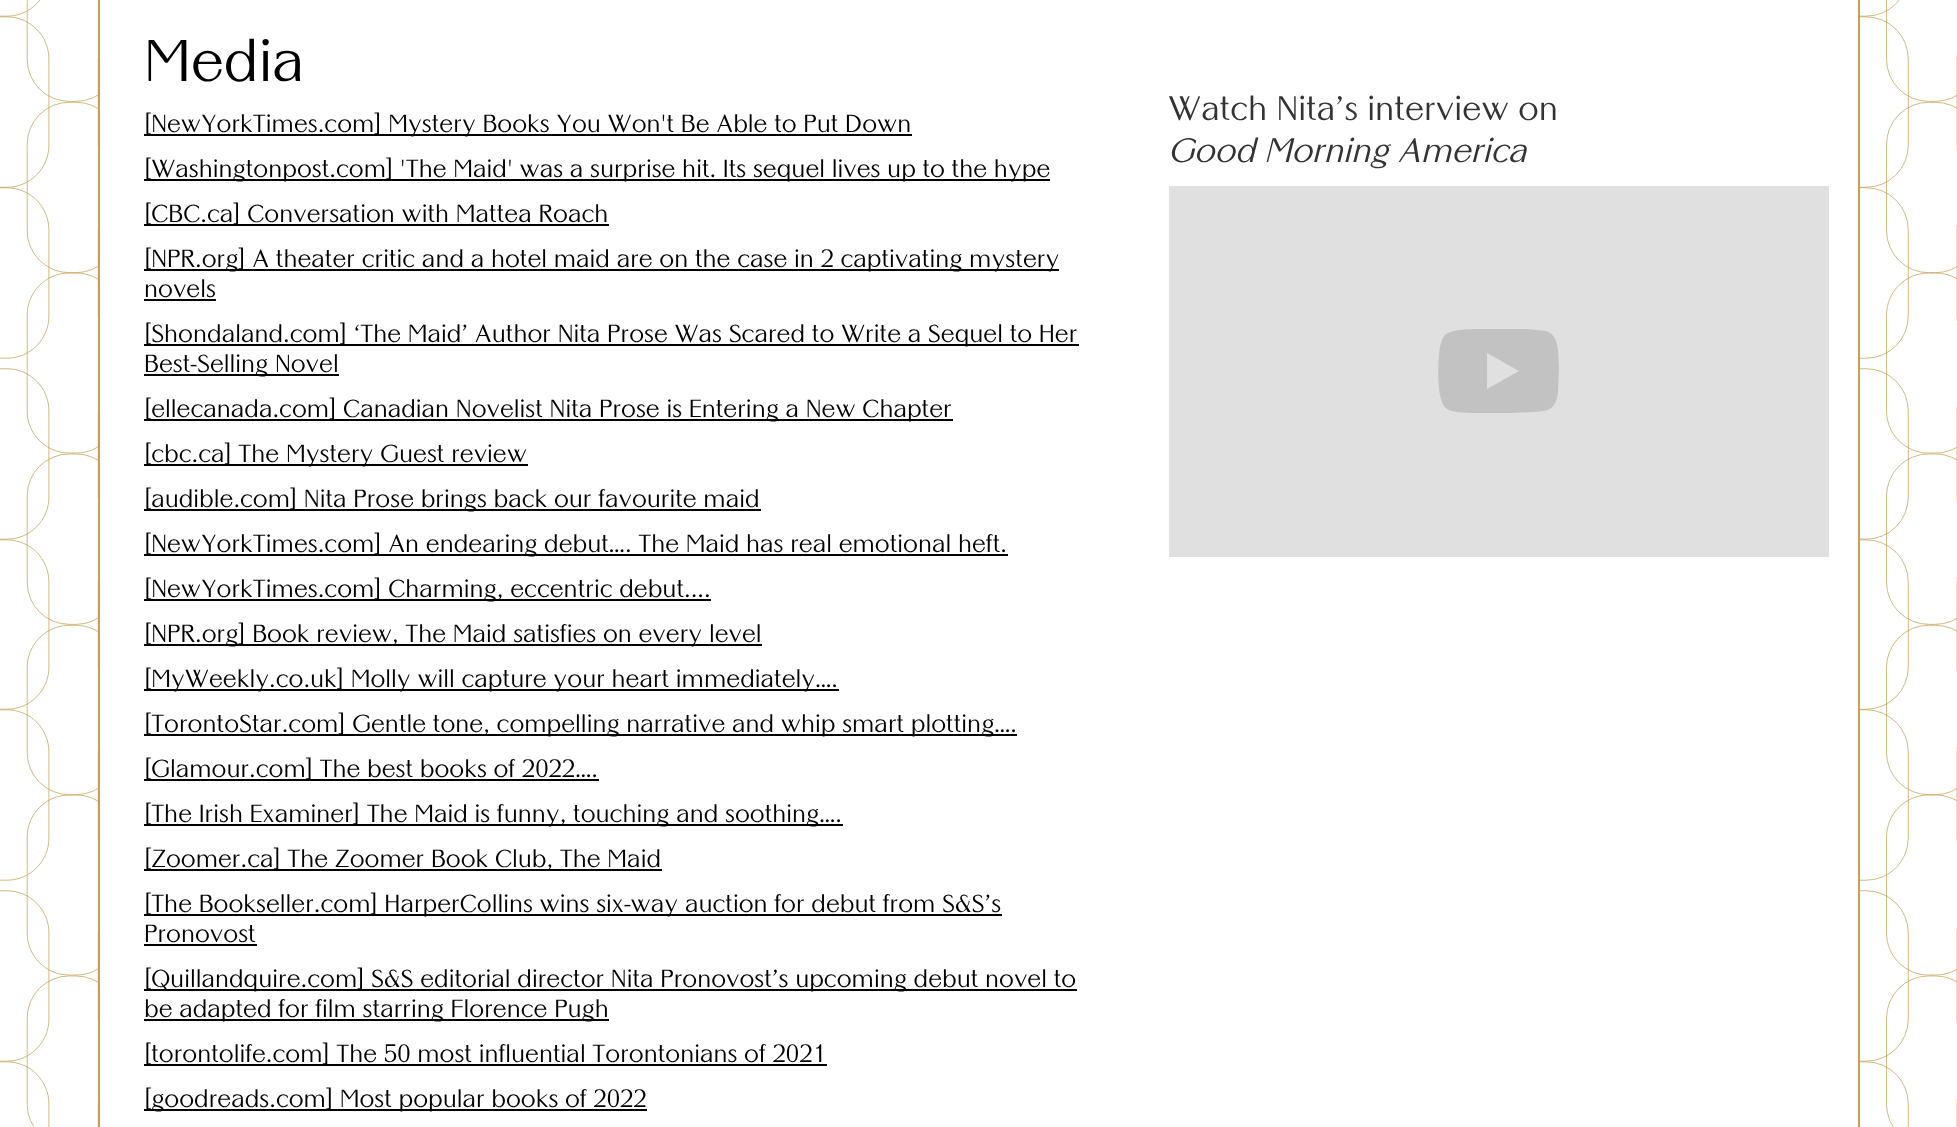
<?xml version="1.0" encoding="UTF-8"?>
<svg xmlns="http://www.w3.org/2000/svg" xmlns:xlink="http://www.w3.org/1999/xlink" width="1957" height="1127">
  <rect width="100%" height="100%" fill="#ffffff" />
  <image x="0" y="0" width="1957" height="1127" xlink:href="image1.png" />
  <rect x="99" y="-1" width="1760" height="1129" fill="#ffffff" stroke="#c5a052" stroke-width="2" />
  <rect x="144" y="134" width="768" height="2" fill="#000000" />
  <rect x="144" y="179" width="906" height="2" fill="#000000" />
  <rect x="144" y="224" width="465" height="2" fill="#000000" />
  <rect x="144" y="269" width="915" height="2" fill="#000000" />
  <rect x="144" y="299" width="72" height="2" fill="#000000" />
  <rect x="144" y="344" width="935" height="2" fill="#000000" />
  <rect x="144" y="374" width="195" height="2" fill="#000000" />
  <rect x="144" y="419" width="809" height="2" fill="#000000" />
  <rect x="144" y="464" width="384" height="2" fill="#000000" />
  <rect x="144" y="509" width="617" height="2" fill="#000000" />
  <rect x="144" y="554" width="864" height="2" fill="#000000" />
  <rect x="144" y="599" width="567" height="2" fill="#000000" />
  <rect x="144" y="644" width="618" height="2" fill="#000000" />
  <rect x="144" y="689" width="695" height="2" fill="#000000" />
  <rect x="144" y="734" width="873" height="2" fill="#000000" />
  <rect x="144" y="779" width="455" height="2" fill="#000000" />
  <rect x="144" y="824" width="699" height="2" fill="#000000" />
  <rect x="144" y="869" width="518" height="2" fill="#000000" />
  <rect x="144" y="914" width="858" height="2" fill="#000000" />
  <rect x="144" y="944" width="113" height="2" fill="#000000" />
  <rect x="144" y="989" width="933" height="2" fill="#000000" />
  <rect x="144" y="1019" width="465" height="2" fill="#000000" />
  <rect x="144" y="1064" width="683" height="2" fill="#000000" />
  <rect x="144" y="1109" width="503" height="2" fill="#000000" />
  <rect x="1169" y="186" width="660" height="371" fill="#e0e0e0" />
  <path d="M 1487 389 v -36 l 32 18 z m 59 -58 c -6 -1 -13 -1 -19 -2 h -34 c -10 0 -37 -1 -45 4 c -3 1 -5 4 -6 7 c -5 11 -5 51 0 62 c 1 4 5 8 10 9 c 8 2 18 2 27 2 h 32 l 23 -1 c 17 -1 22 -4 24 -20 l 1 -24 l -1 -18 c -1 -8 -3 -16 -12 -19 z" fill="#c2c2c2" fill-rule="evenodd" />
  <text x="144" y="81" style="font-family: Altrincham; font-size: 57px; fill: #000000">Media</text>
  <text x="144" y="132" style="font-family: Altrincham; font-size: 24px; fill: #000000">[NewYorkTimes.com] Mystery Books You Won't Be Able to Put Down</text>
  <text x="144" y="177" style="font-family: Altrincham; font-size: 24px; fill: #000000">[Washingtonpost.com] 'The Maid' was a surprise hit. Its sequel lives up to the hype</text>
  <text x="144" y="222" style="font-family: Altrincham; font-size: 24px; fill: #000000">[CBC.ca] Conversation with Mattea Roach</text>
  <text x="144" y="267" style="font-family: Altrincham; font-size: 24px; fill: #000000">[NPR.org] A theater critic and a hotel maid are on the case in 2 captivating mystery</text>
  <text x="144" y="297" style="font-family: Altrincham; font-size: 24px; fill: #000000">novels</text>
  <text x="144" y="342" style="font-family: Altrincham; font-size: 24px; fill: #000000">[Shondaland.com] ‘The Maid’ Author Nita Prose Was Scared to Write a Sequel to Her</text>
  <text x="144" y="372" style="font-family: Altrincham; font-size: 24px; fill: #000000">Best-Selling Novel</text>
  <text x="144" y="417" style="font-family: Altrincham; font-size: 24px; fill: #000000">[ellecanada.com] Canadian Novelist Nita Prose is Entering a New Chapter</text>
  <text x="144" y="462" style="font-family: Altrincham; font-size: 24px; fill: #000000">[cbc.ca] The Mystery Guest review</text>
  <text x="144" y="507" style="font-family: Altrincham; font-size: 24px; fill: #000000">[audible.com] Nita Prose brings back our favourite maid</text>
  <text x="144" y="552" style="font-family: Altrincham; font-size: 24px; fill: #000000">[NewYorkTimes.com] An endearing debut…. The Maid has real emotional heft.</text>
  <text x="144" y="597" style="font-family: Altrincham; font-size: 24px; fill: #000000">[NewYorkTimes.com] Charming, eccentric debut....</text>
  <text x="144" y="642" style="font-family: Altrincham; font-size: 24px; fill: #000000">[NPR.org] Book review, The Maid satisfies on every level</text>
  <text x="144" y="687" style="font-family: Altrincham; font-size: 24px; fill: #000000">[MyWeekly.co.uk] Molly will capture your heart immediately….</text>
  <text x="144" y="732" style="font-family: Altrincham; font-size: 24px; fill: #000000">[TorontoStar.com] Gentle tone, compelling narrative and whip smart plotting….</text>
  <text x="144" y="777" style="font-family: Altrincham; font-size: 24px; fill: #000000">[Glamour.com] The best books of 2022….</text>
  <text x="144" y="822" style="font-family: Altrincham; font-size: 24px; fill: #000000">[The Irish Examiner] The Maid is funny, touching and soothing….</text>
  <text x="144" y="867" style="font-family: Altrincham; font-size: 24px; fill: #000000">[Zoomer.ca] The Zoomer Book Club, The Maid</text>
  <text x="144" y="912" style="font-family: Altrincham; font-size: 24px; fill: #000000">[The Bookseller.com] HarperCollins wins six-way auction for debut from S&amp;S’s</text>
  <text x="144" y="942" style="font-family: Altrincham; font-size: 24px; fill: #000000">Pronovost</text>
  <text x="144" y="987" style="font-family: Altrincham; font-size: 24px; fill: #000000">[Quillandquire.com] S&amp;S editorial director Nita Pronovost’s upcoming debut novel to</text>
  <text x="144" y="1017" style="font-family: Altrincham; font-size: 24px; fill: #000000">be adapted for film starring Florence Pugh</text>
  <text x="144" y="1062" style="font-family: Altrincham; font-size: 24px; fill: #000000">[torontolife.com] The 50 most influential Torontonians of 2021</text>
  <text x="144" y="1107" style="font-family: Altrincham; font-size: 24px; fill: #000000">[goodreads.com] Most popular books of 2022</text>
  <text x="1168" y="120" style="font-family: Altrincham; font-size: 33px; fill: #333333">Watch Nita’s interview on</text>
  <text x="1168" y="162" style="font-family: Altrincham; font-size: 33px; font-style: italic; fill: #333333">Good Morning America</text>
</svg>
